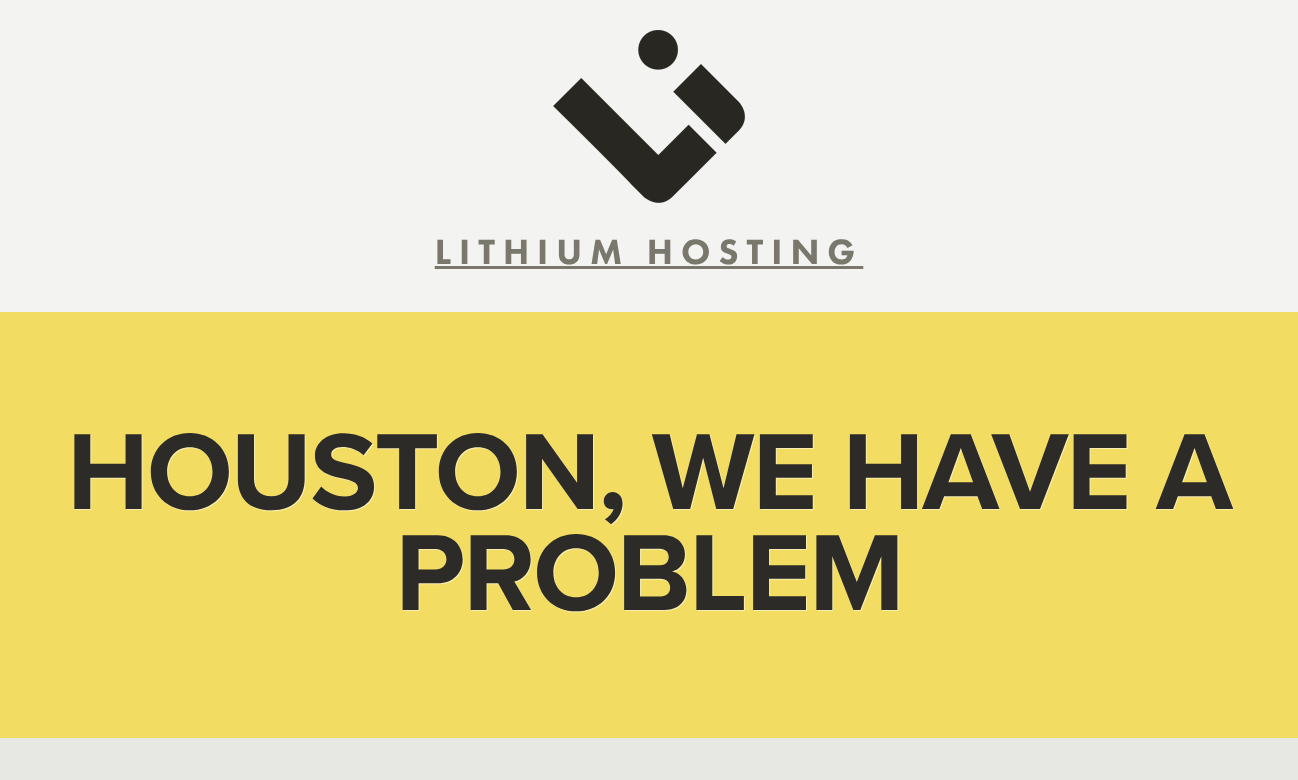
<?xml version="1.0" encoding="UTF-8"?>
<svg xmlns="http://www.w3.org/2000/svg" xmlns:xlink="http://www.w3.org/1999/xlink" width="1298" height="780">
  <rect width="100%" height="100%" fill="#ffffff" />
  <image x="0" y="0" width="1298" height="780" xlink:href="image1.png" />
</svg>
